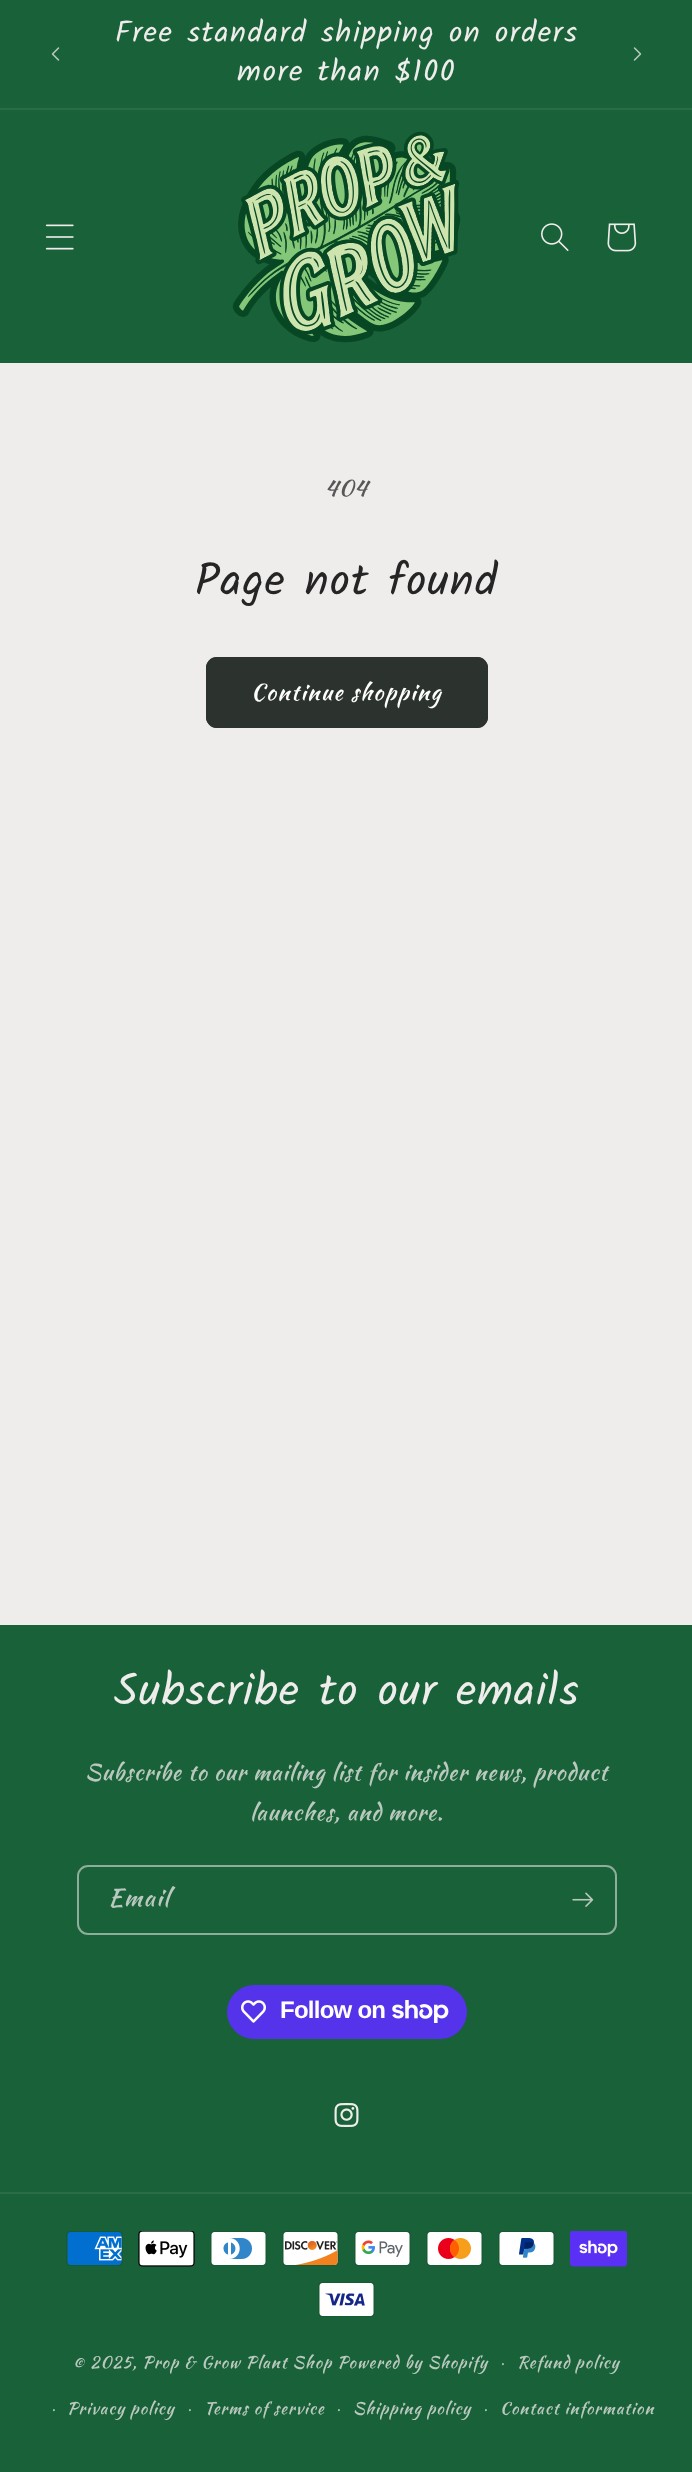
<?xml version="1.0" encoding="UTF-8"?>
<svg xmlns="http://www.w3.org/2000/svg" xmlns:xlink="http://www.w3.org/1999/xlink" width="692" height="2472">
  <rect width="100%" height="100%" fill="#efecec" />
  <rect width="692" height="108" fill="#196138" />
  <rect y="108" width="692" height="2" fill="#2a6c46" />
  <image x="51" y="47" width="9" height="14" xlink:href="image1.png" />
  <image x="633" y="47" width="9" height="14" xlink:href="image2.png" />
  <rect y="110" width="692" height="253" fill="#196138" />
  <image x="45" y="224" width="29" height="26" xlink:href="image3.png" />
  <image x="232" y="131" width="229" height="212" xlink:href="image4.png" />
  <image x="541" y="223" width="28" height="28" xlink:href="image5.png" />
  <image x="607" y="223" width="30" height="29" xlink:href="image6.png" />
  <rect x="206" y="657" width="282" height="71" rx="11" fill="#2c332f" />
  <rect x="207" y="658" width="280" height="69" rx="10" fill="none" stroke="#2c332f" stroke-width="2" />
  <rect y="1625" width="692" height="847" fill="#196138" />
  <rect x="78" y="1866" width="538" height="68" rx="10" fill="none" stroke="#8fad9b" stroke-width="2" />
  <image x="572" y="1892" width="22" height="15" xlink:href="image7.png" />
  <rect x="227" y="1985" width="240" height="54" rx="27" fill="#5433eb" />
  <image x="241" y="2000" width="25" height="23" xlink:href="image8.png" />
  <image x="392" y="2000" width="57" height="23" xlink:href="image9.png" />
  <image x="334" y="2103" width="25" height="24" xlink:href="image10.png" />
  <rect y="2192" width="692" height="2" fill="#2a6c46" />
  <image x="66" y="2231" width="57" height="35" xlink:href="image11.png" />
  <image x="138" y="2231" width="57" height="36" xlink:href="image12.png" />
  <image x="210" y="2231" width="57" height="35" xlink:href="image13.png" />
  <image x="282" y="2231" width="57" height="35" xlink:href="image14.png" />
  <image x="354" y="2231" width="57" height="35" xlink:href="image15.png" />
  <image x="426" y="2231" width="57" height="35" xlink:href="image16.png" />
  <image x="498" y="2231" width="57" height="35" xlink:href="image17.png" />
  <image x="570" y="2231" width="57" height="36" xlink:href="image18.png" />
  <image x="318" y="2282" width="57" height="35" xlink:href="image19.png" />
  <text x="115" y="42" style="font-family: Kalam; font-size: 30px; letter-spacing: 1.5px; fill: #efecec">Free standard shipping on orders</text>
  <text x="237" y="81" style="font-family: Kalam; font-size: 30px; letter-spacing: 1.5px; fill: #efecec">more than $100</text>
  <text x="325" y="496" style="font-family: Kaushan Script; font-size: 22.5px; letter-spacing: 0.9px; fill: #585757">404</text>
  <text x="195" y="595" style="font-family: Kalam; font-size: 45px; letter-spacing: 0.9px; fill: #252525">Page not found</text>
  <text x="251" y="700" style="font-family: Kaushan Script; font-size: 22.5px; letter-spacing: 1.5px; fill: #ffffff">Continue shopping</text>
  <text x="114" y="1705" style="font-family: Kalam; font-size: 45px; letter-spacing: 0.9px; fill: #efecec">Subscribe to our emails</text>
  <text x="85" y="1780" style="font-family: Kaushan Script; font-size: 22.5px; letter-spacing: 0.9px; fill: #bac9bf">Subscribe to our mailing list for insider news, product</text>
  <text x="250" y="1820" style="font-family: Kaushan Script; font-size: 22.5px; letter-spacing: 0.9px; fill: #bac9bf">launches, and more.</text>
  <text x="108" y="1906" style="font-family: Kaushan Script; font-size: 24px; letter-spacing: 1.5px; fill: #bac9bf">Email</text>
  <text x="280" y="2018" style="font-family: Liberation Sans; font-size: 24px; font-weight: bold; letter-spacing: -0.75px; fill: #ffffff">Follow on</text>
  <text x="500" y="2368" style="font-family: Kaushan Script; font-size: 15px; letter-spacing: 1.05px; fill: #bac9bf">·</text>
  <text x="517" y="2368" style="font-family: Kaushan Script; font-size: 16.5px; letter-spacing: 1.05px; fill: #bac9bf">Refund policy</text>
  <text x="51" y="2414" style="font-family: Kaushan Script; font-size: 15px; letter-spacing: 1.05px; fill: #bac9bf">·</text>
  <text x="67" y="2414" style="font-family: Kaushan Script; font-size: 16.5px; letter-spacing: 1.05px; fill: #bac9bf">Privacy policy</text>
  <text x="187" y="2414" style="font-family: Kaushan Script; font-size: 15px; letter-spacing: 1.05px; fill: #bac9bf">·</text>
  <text x="204" y="2414" style="font-family: Kaushan Script; font-size: 16.5px; letter-spacing: 1.05px; fill: #bac9bf">Terms of service</text>
  <text x="336" y="2414" style="font-family: Kaushan Script; font-size: 15px; letter-spacing: 1.05px; fill: #bac9bf">·</text>
  <text x="353" y="2414" style="font-family: Kaushan Script; font-size: 16.5px; letter-spacing: 1.05px; fill: #bac9bf">Shipping policy</text>
  <text x="483" y="2414" style="font-family: Kaushan Script; font-size: 15px; letter-spacing: 1.05px; fill: #bac9bf">·</text>
  <text x="500" y="2414" style="font-family: Kaushan Script; font-size: 16.5px; letter-spacing: 1.05px; fill: #bac9bf">Contact information</text>
  <text x="73" y="2368" style="font-family: Kaushan Script; font-size: 16.5px; letter-spacing: 1.05px; fill: #bac9bf">© 2025, Prop &amp; Grow Plant Shop Powered by Shopify</text>
</svg>
